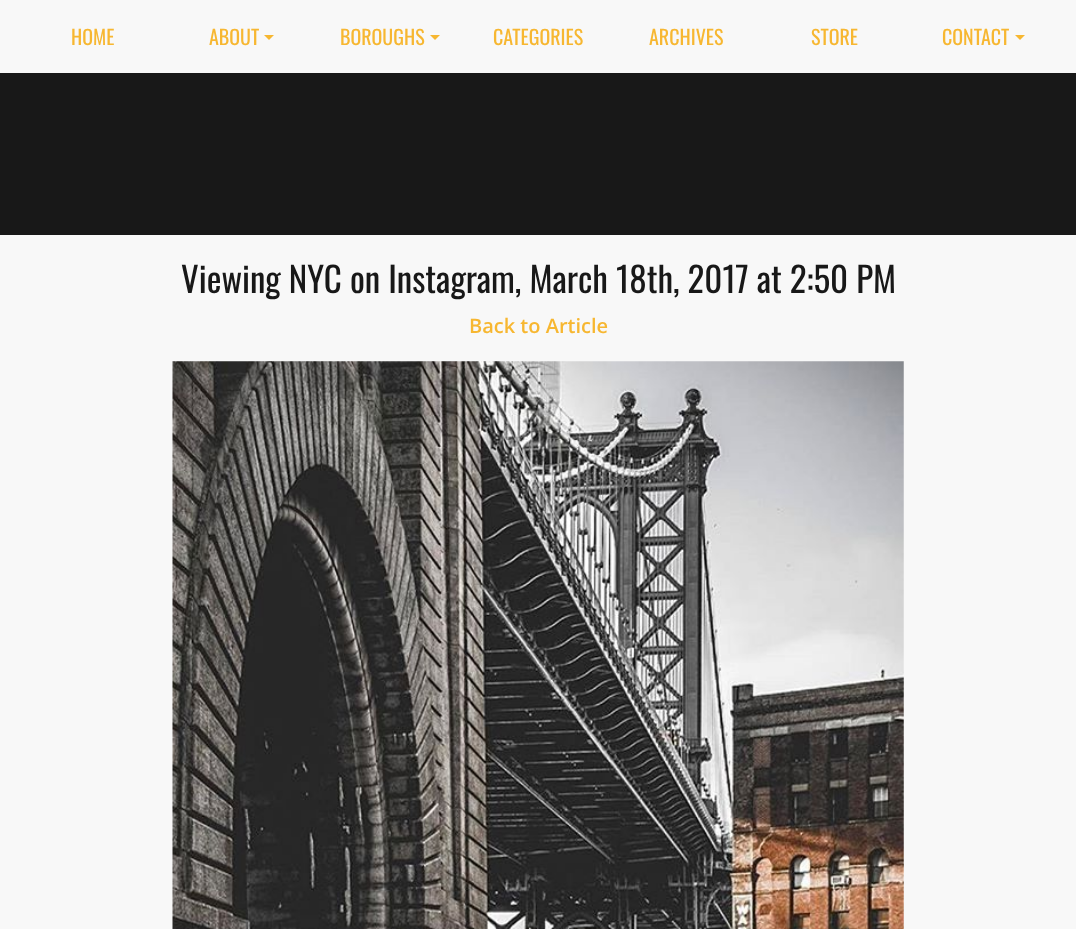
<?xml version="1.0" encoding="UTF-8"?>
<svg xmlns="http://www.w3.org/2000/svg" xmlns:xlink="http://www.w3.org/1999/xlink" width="1076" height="929">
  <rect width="100%" height="100%" fill="#f8f8f8" />
  <path d="M 264 35 h 10 l -5 5 z" fill="#f7b731" />
  <path d="M 430 35 h 10 l -5 5 z" fill="#f7b731" />
  <path d="M 1015 35 h 10 l -5 5 z" fill="#f7b731" />
  <rect y="73" width="1076" height="162" fill="#181818" />
  <image x="172" y="361" width="732" height="568" xlink:href="image1.png" />
  <text x="71" y="45" style="font-family: Oswald; font-size: 20px; fill: #f7b731">HOME</text>
  <text x="209" y="45" style="font-family: Oswald; font-size: 20px; fill: #f7b731">ABOUT</text>
  <text x="340" y="45" style="font-family: Oswald; font-size: 20px; fill: #f7b731">BOROUGHS</text>
  <text x="493" y="45" style="font-family: Oswald; font-size: 20px; fill: #f7b731">CATEGORIES</text>
  <text x="649" y="45" style="font-family: Oswald; font-size: 20px; fill: #f7b731">ARCHIVES</text>
  <text x="811" y="45" style="font-family: Oswald; font-size: 20px; fill: #f7b731">STORE</text>
  <text x="942" y="45" style="font-family: Oswald; font-size: 20px; fill: #f7b731">CONTACT</text>
  <text x="181" y="293" style="font-family: Oswald; font-size: 35px; fill: #181818">Viewing NYC on Instagram, March 18th, 2017 at 2:50 PM</text>
  <text x="469" y="333" style="font-family: Open Sans; font-size: 20px; font-weight: 600; fill: #f7b731">Back to Article</text>
</svg>
